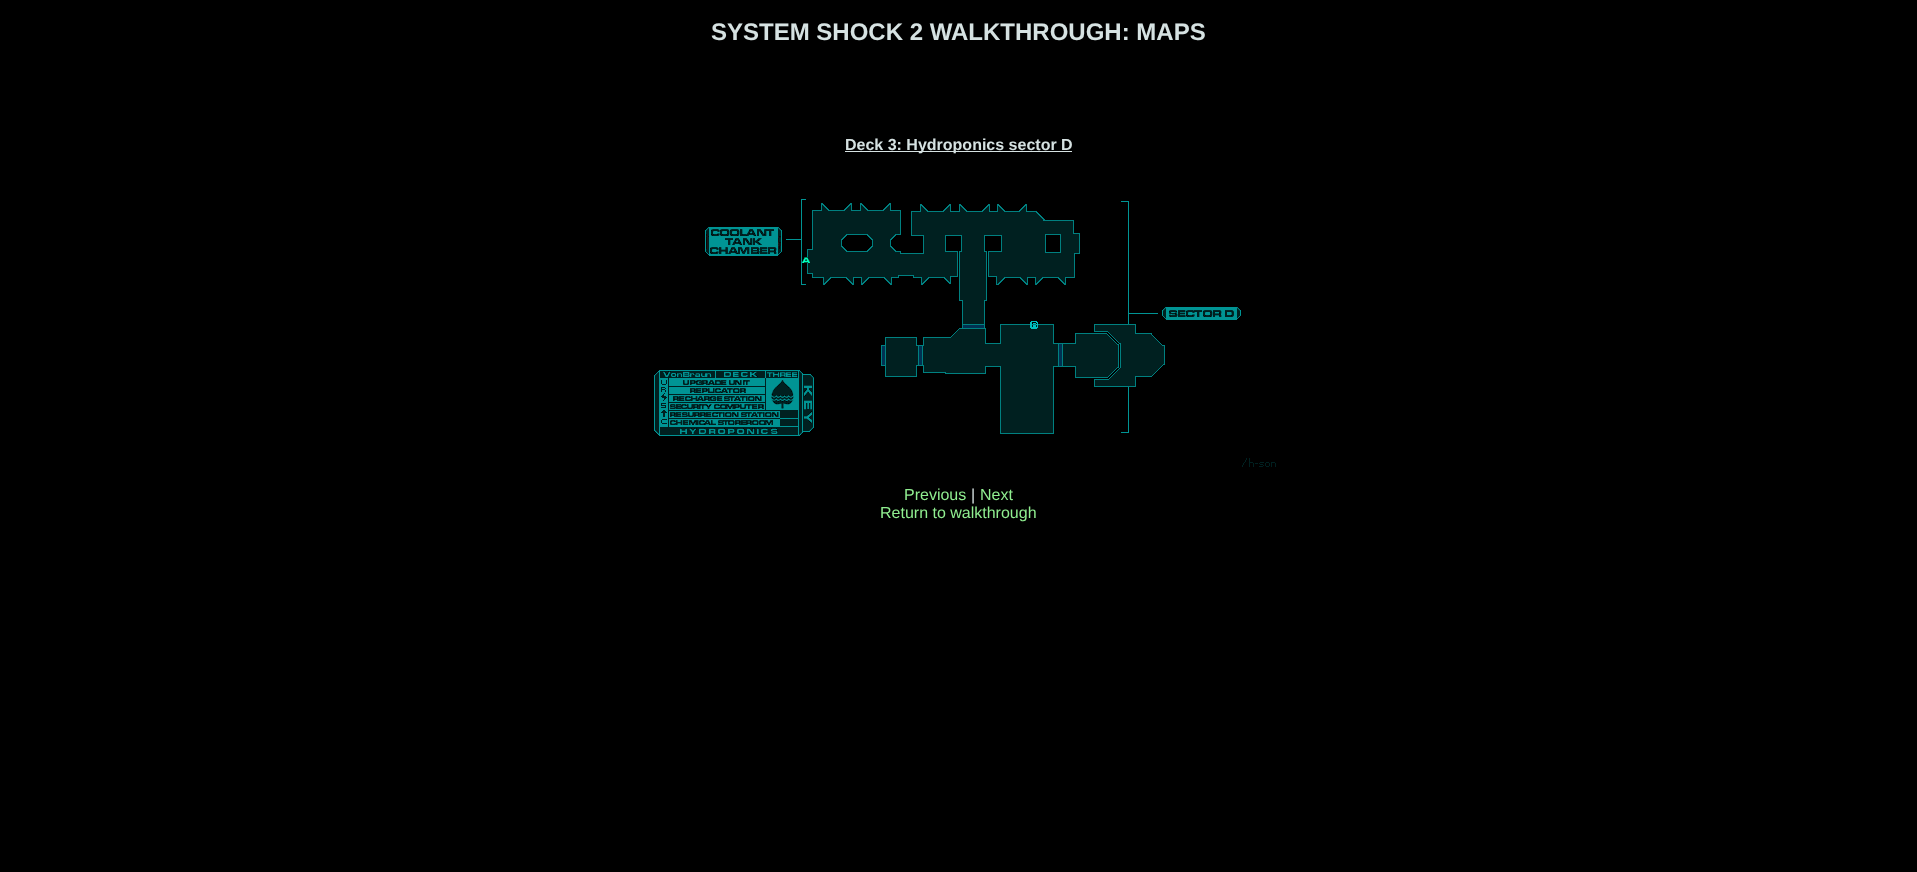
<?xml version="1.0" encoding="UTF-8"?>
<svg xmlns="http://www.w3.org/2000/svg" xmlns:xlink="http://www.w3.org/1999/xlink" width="1917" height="872">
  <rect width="100%" height="100%" fill="#000000" />
  <rect x="845" y="151" width="227" height="1" fill="#d6e2e2" />
  <image x="654" y="199" width="622" height="268" xlink:href="image1.png" />
  <text x="711" y="40" style="font-family: Liberation Sans; font-size: 24px; font-weight: bold; fill: #d6e2e2">SYSTEM SHOCK 2 WALKTHROUGH: MAPS</text>
  <text x="845" y="150" style="font-family: Liberation Sans; font-size: 16px; font-weight: bold; fill: #d6e2e2">Deck 3: Hydroponics sector D</text>
  <text x="904" y="500" style="font-family: Liberation Sans; font-size: 16px; fill: #90ee90">Previous</text>
  <text x="971" y="500" style="font-family: Liberation Sans; font-size: 16px; fill: #d6e2e2">|</text>
  <text x="980" y="500" style="font-family: Liberation Sans; font-size: 16px; fill: #90ee90">Next</text>
  <text x="880" y="518" style="font-family: Liberation Sans; font-size: 16px; fill: #90ee90">Return to walkthrough</text>
</svg>
